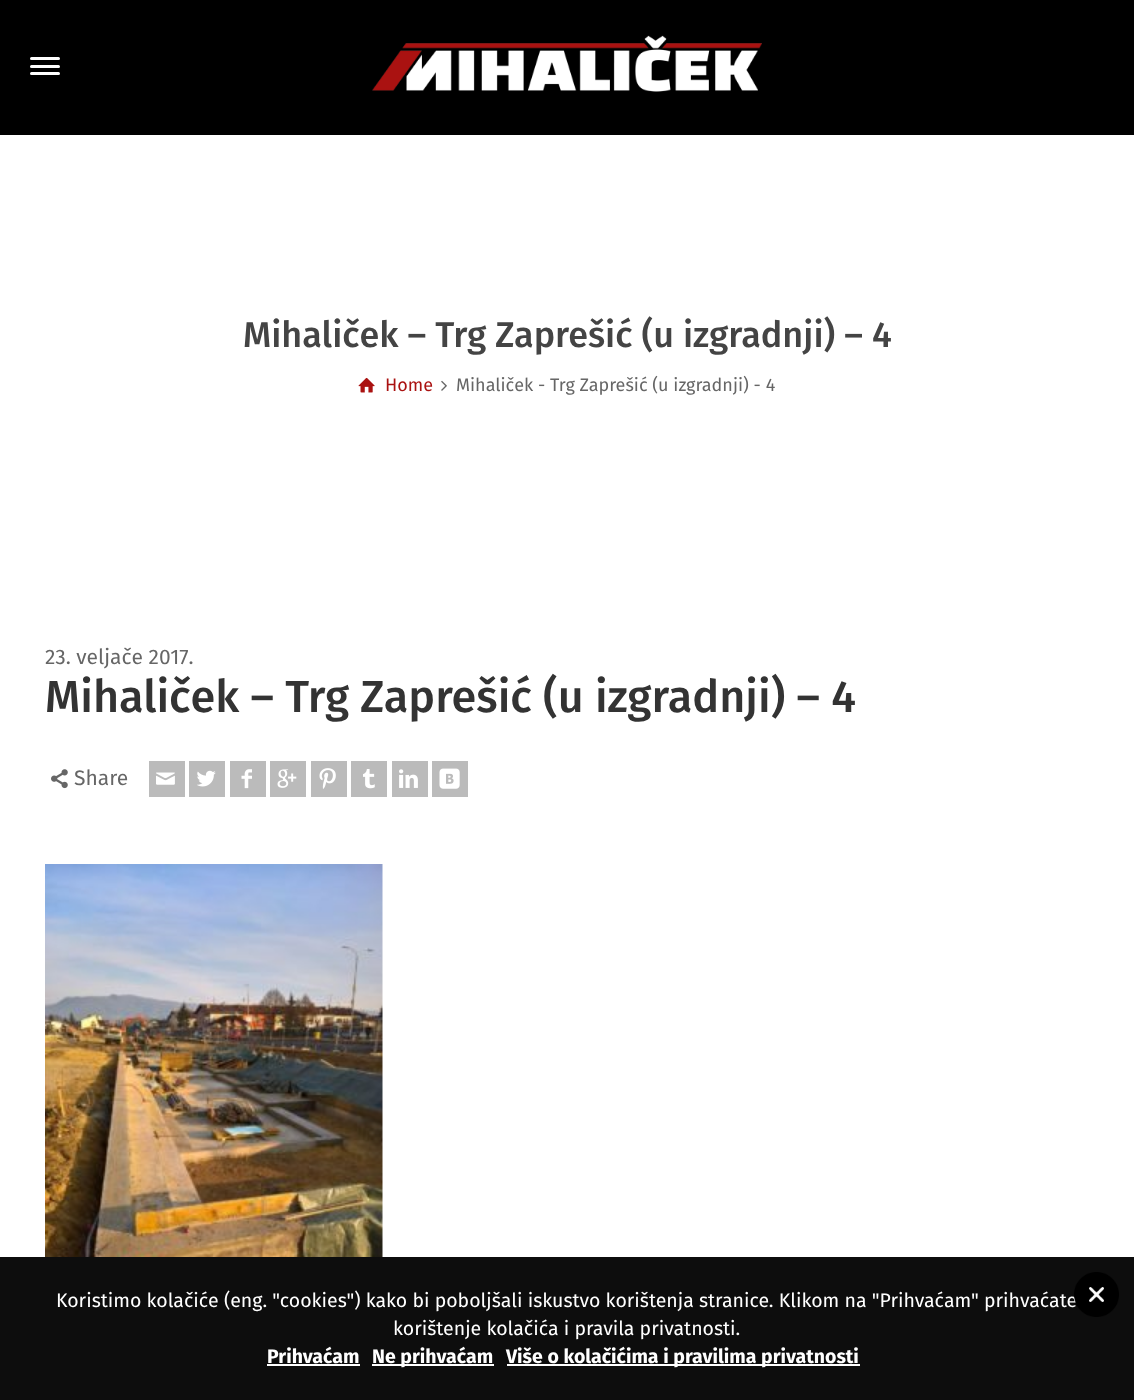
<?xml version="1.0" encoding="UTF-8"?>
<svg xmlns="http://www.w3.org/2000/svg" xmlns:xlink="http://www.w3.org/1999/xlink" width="1134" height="1400">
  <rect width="100%" height="100%" fill="#ffffff" />
  <rect width="1134" height="135" fill="#000000" />
  <rect x="30" y="57" width="30" height="3" rx="1.5" fill="#ffffff" />
  <rect x="30" y="65" width="30" height="3" rx="1.5" fill="#ffffff" />
  <rect x="30" y="72" width="30" height="3" rx="1.5" fill="#ffffff" />
  <image x="372" y="35" width="390" height="57" xlink:href="image1.png" />
  <image x="358" y="377" width="17" height="16" xlink:href="image2.png" />
  <image x="441" y="380" width="6" height="11" xlink:href="image3.png" />
  <image x="51" y="769" width="17" height="20" xlink:href="image4.png" />
  <rect x="149" y="761" width="36" height="36" fill="#bbbbbb" />
  <image x="156" y="772" width="19" height="13" xlink:href="image5.png" />
  <rect x="189" y="761" width="36" height="36" fill="#bbbbbb" />
  <image x="197" y="770" width="19" height="17" xlink:href="image6.png" />
  <rect x="230" y="761" width="36" height="36" fill="#bbbbbb" />
  <image x="241" y="769" width="11" height="20" xlink:href="image7.png" />
  <rect x="270" y="761" width="36" height="36" fill="#bbbbbb" />
  <image x="277" y="769" width="20" height="19" xlink:href="image8.png" />
  <rect x="311" y="761" width="36" height="36" fill="#bbbbbb" />
  <image x="319" y="768" width="17" height="21" xlink:href="image9.png" />
  <rect x="351" y="761" width="36" height="36" fill="#bbbbbb" />
  <image x="363" y="769" width="12" height="20" xlink:href="image10.png" />
  <rect x="392" y="761" width="36" height="36" fill="#bbbbbb" />
  <image x="399" y="769" width="19" height="19" xlink:href="image11.png" />
  <rect x="432" y="761" width="36" height="36" fill="#bbbbbb" />
  <image x="439" y="768" width="21" height="21" xlink:href="image12.png" />
  <image x="45" y="864" width="338" height="393" xlink:href="image13.png" />
  <rect y="1257" width="1134" height="143" fill="#0d0d0d" />
  <rect x="267" y="1364" width="93" height="2" fill="#ffffff" />
  <rect x="372" y="1364" width="122" height="2" fill="#ffffff" />
  <rect x="507" y="1364" width="353" height="2" fill="#ffffff" />
  <text x="243" y="347" style="font-family: Fira Sans; font-size: 36px; font-weight: 500; fill: #444444">Mihaliček – Trg Zaprešić (u izgradnji) – 4</text>
  <text x="385" y="391" style="font-family: Fira Sans; font-size: 18px; fill: #aa1211">Home</text>
  <text x="456" y="391" style="font-family: Fira Sans; font-size: 18px; fill: #666666">Mihaliček - Trg Zaprešić (u izgradnji) - 4</text>
  <text x="45" y="664" style="font-family: Fira Sans; font-size: 21px; fill: #666666">23. veljače 2017.</text>
  <text x="45" y="712" style="font-family: Fira Sans; font-size: 45px; font-weight: 500; fill: #333333">Mihaliček – Trg Zaprešić (u izgradnji) – 4</text>
  <text x="74" y="785" style="font-family: Fira Sans; font-size: 21px; fill: #666666">Share</text>
  <text x="56" y="1307" style="font-family: Fira Sans; font-size: 19.5px; fill: #ffffff">Koristimo kolačiće (eng. "cookies") kako bi poboljšali iskustvo korištenja stranice. Klikom na "Prihvaćam" prihvaćate</text>
  <text x="393" y="1335" style="font-family: Fira Sans; font-size: 19.5px; fill: #ffffff">korištenje kolačića i pravila privatnosti.</text>
  <image x="1074" y="1272" width="45" height="45" xlink:href="image14.png" />
  <text x="267" y="1363" style="font-family: Fira Sans; font-size: 19.5px; font-weight: bold; fill: #ffffff">Prihvaćam</text>
  <text x="372" y="1363" style="font-family: Fira Sans; font-size: 19.5px; font-weight: bold; fill: #ffffff">Ne prihvaćam</text>
  <text x="506" y="1363" style="font-family: Fira Sans; font-size: 19.5px; font-weight: bold; fill: #ffffff">Više o kolačićima i pravilima privatnosti</text>
</svg>
